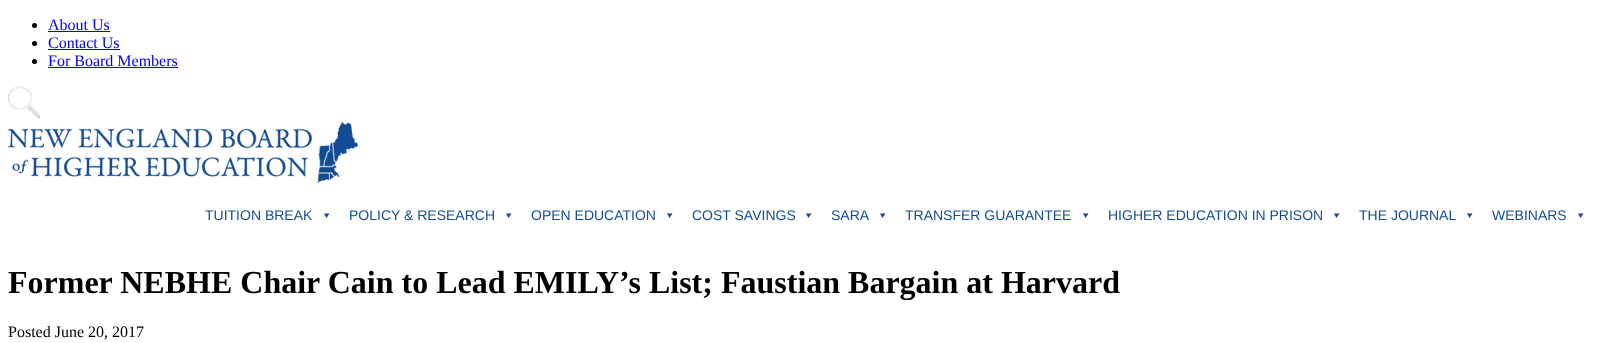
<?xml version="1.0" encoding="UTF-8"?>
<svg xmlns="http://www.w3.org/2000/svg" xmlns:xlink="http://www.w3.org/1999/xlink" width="1611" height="343">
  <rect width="100%" height="100%" fill="#ffffff" />
  <circle cx="34.5" cy="25.5" r="2.5" fill="#000000" />
  <rect x="48" y="31" width="62" height="1" fill="#0000ee" />
  <circle cx="34.5" cy="43.5" r="2.5" fill="#000000" />
  <rect x="48" y="49" width="72" height="1" fill="#0000ee" />
  <circle cx="34.5" cy="61.5" r="2.5" fill="#000000" />
  <rect x="48" y="67" width="130" height="1" fill="#0000ee" />
  <image x="8" y="86" width="32" height="32" xlink:href="image1.png" />
  <image x="8" y="122" width="350" height="61" xlink:href="image2.png" />
  <path d="M 329.5 213.5 l -3 4.5 l -2.5 -4.5 z" fill="#124b94" />
  <path d="M 511.5 213.5 l -3 4.5 l -2.5 -4.5 z" fill="#124b94" />
  <path d="M 672.5 213.5 l -3 4.5 l -2.5 -4.5 z" fill="#124b94" />
  <path d="M 811.5 213.5 l -3 4.5 l -2.5 -4.5 z" fill="#124b94" />
  <path d="M 885.5 213.5 l -3 4.5 l -2.5 -4.5 z" fill="#124b94" />
  <path d="M 1088.5 213.5 l -3 4.5 l -2.5 -4.5 z" fill="#124b94" />
  <path d="M 1339.5 213.5 l -3 4.5 l -2.5 -4.5 z" fill="#124b94" />
  <path d="M 1472.5 213.5 l -3 4.5 l -2.5 -4.5 z" fill="#124b94" />
  <path d="M 1583.5 213.5 l -3 4.5 l -2.5 -4.5 z" fill="#124b94" />
  <text x="48" y="30" style="font-family: Liberation Serif; font-size: 16px; fill: #0000ee">About Us</text>
  <text x="48" y="48" style="font-family: Liberation Serif; font-size: 16px; fill: #0000ee">Contact Us</text>
  <text x="48" y="66" style="font-family: Liberation Serif; font-size: 16px; fill: #0000ee">For Board Members</text>
  <text x="205" y="220" style="font-family: Liberation Sans; font-size: 14px; fill: #124b94">TUITION BREAK</text>
  <text x="349" y="220" style="font-family: Liberation Sans; font-size: 14px; fill: #124b94">POLICY &amp; RESEARCH</text>
  <text x="531" y="220" style="font-family: Liberation Sans; font-size: 14px; fill: #124b94">OPEN EDUCATION</text>
  <text x="692" y="220" style="font-family: Liberation Sans; font-size: 14px; fill: #124b94">COST SAVINGS</text>
  <text x="831" y="220" style="font-family: Liberation Sans; font-size: 14px; fill: #124b94">SARA</text>
  <text x="905" y="220" style="font-family: Liberation Sans; font-size: 14px; fill: #124b94">TRANSFER GUARANTEE</text>
  <text x="1108" y="220" style="font-family: Liberation Sans; font-size: 14px; fill: #124b94">HIGHER EDUCATION IN PRISON</text>
  <text x="1359" y="220" style="font-family: Liberation Sans; font-size: 14px; fill: #124b94">THE JOURNAL</text>
  <text x="1492" y="220" style="font-family: Liberation Sans; font-size: 14px; fill: #124b94">WEBINARS</text>
  <text x="8" y="293" style="font-family: Liberation Serif; font-size: 32px; font-weight: bold; fill: #000000">Former NEBHE Chair Cain to Lead EMILY’s List; Faustian Bargain at Harvard</text>
  <text x="8" y="337" style="font-family: Liberation Serif; font-size: 16px; fill: #000000">Posted June 20, 2017</text>
</svg>
